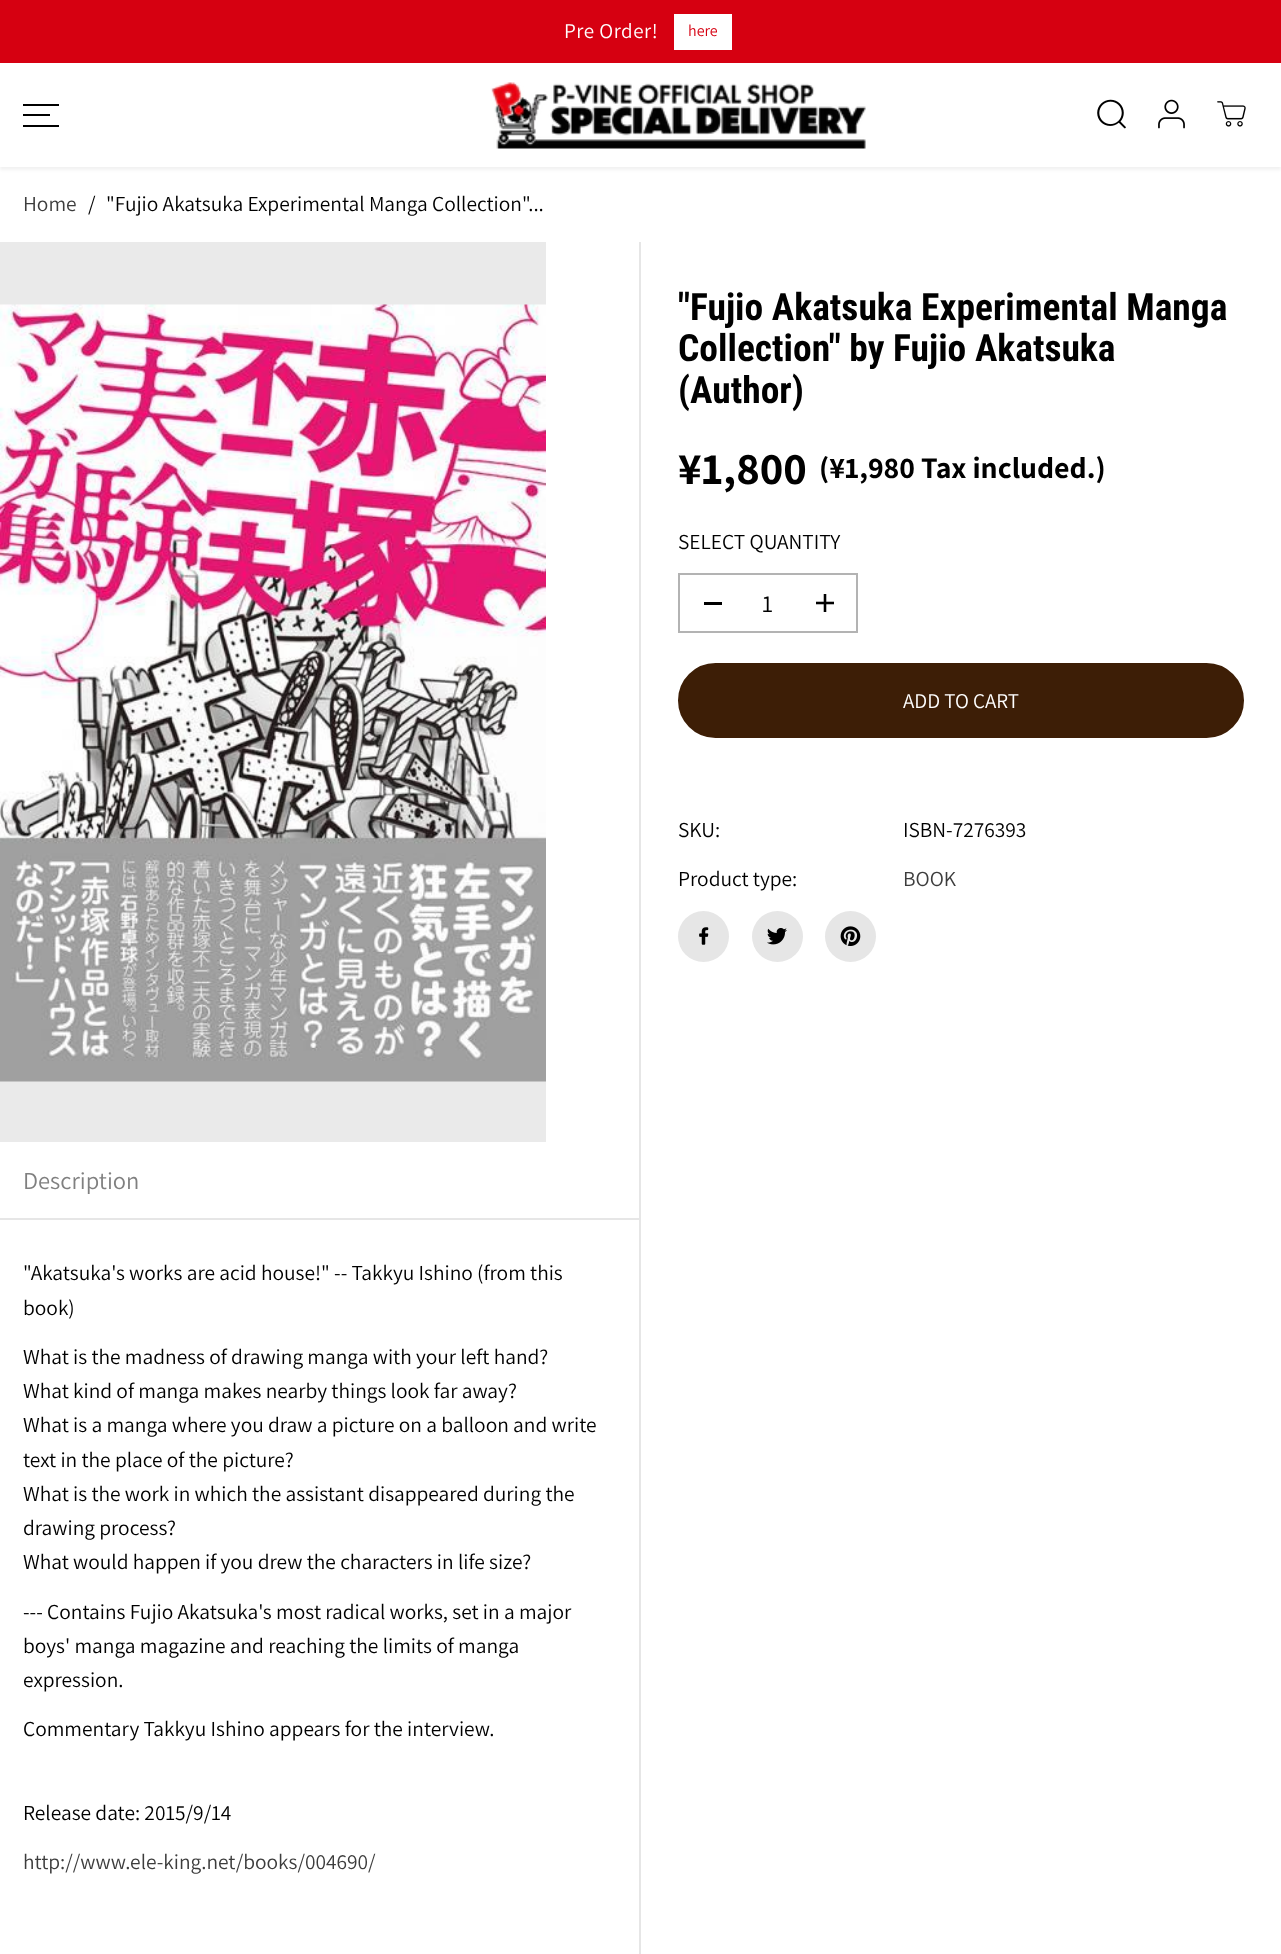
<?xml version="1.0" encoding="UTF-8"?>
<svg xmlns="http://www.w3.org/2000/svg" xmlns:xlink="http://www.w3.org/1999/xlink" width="1281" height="1954">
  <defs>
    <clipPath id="clip1"><path d="M 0 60 h 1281 v 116 h -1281 z m 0 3 h 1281 v 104 h -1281 z" clip-rule="evenodd" /></clipPath>
  </defs>
  <rect width="100%" height="100%" fill="#ffffff" />
  <rect width="1281" height="63" fill="#d60011" />
  <rect x="674" y="14" width="58" height="36" fill="#ffffff" />
  <g clip-path="url(#clip1)">
    <rect y="66" width="1281" height="104" fill="#000000" fill-opacity="0.05" filter="blur(1.5px)" />
  </g>
  <rect x="23" y="114" width="27" height="2" fill="#000000" />
  <rect x="23" y="104" width="36" height="2" fill="#000000" />
  <rect x="23" y="125" width="36" height="2" fill="#000000" />
  <image x="490" y="82" width="376" height="67" xlink:href="image1.png" />
  <image x="1097" y="99" width="29" height="30" xlink:href="image2.png" />
  <image x="1158" y="99" width="27" height="30" xlink:href="image3.png" />
  <image x="1217" y="101" width="29" height="26" xlink:href="image4.png" />
  <rect x="679" y="574" width="178" height="58" fill="none" stroke="#b3b3b3" stroke-width="2" />
  <rect x="704" y="602" width="18" height="3" fill="#000000" />
  <image x="816" y="594" width="18" height="18" xlink:href="image5.png" />
  <rect x="679" y="664" width="564" height="73" rx="36.5" fill="#3d1e06" stroke="#3d1e06" stroke-width="2" />
  <circle cx="703.5" cy="936.5" r="25.5" fill="#e6e6e6" />
  <image x="699" y="927" width="10" height="18" xlink:href="image6.png" />
  <circle cx="777.5" cy="936.5" r="25.5" fill="#e6e6e6" />
  <image x="767" y="928" width="20" height="17" xlink:href="image7.png" />
  <circle cx="850.5" cy="936.5" r="25.5" fill="#e6e6e6" />
  <image x="840" y="926" width="21" height="20" xlink:href="image8.png" />
  <rect x="639" y="242" width="2" height="1712" fill="#e6e6e6" />
  <rect y="242" width="546" height="900" fill="#eaeaea" />
  <image x="0" y="304" width="546" height="778" xlink:href="image9.png" />
  <rect y="1218" width="639" height="2" fill="#e6e6e6" />
  <text x="564" y="38" style="font-family: Assistant; font-size: 21px; letter-spacing: 0.5px; fill: #ffffff">Pre Order!</text>
  <text x="688" y="36" style="font-family: Assistant; font-size: 16px; fill: #d60011">here</text>
  <text x="23" y="211" style="font-family: Assistant; font-size: 21.4px; fill: #3d3d3d">Home</text>
  <text x="88" y="211" style="font-family: Assistant; font-size: 21.4px; fill: #000000">/</text>
  <text x="106" y="211" style="font-family: Assistant; font-size: 21.4px; fill: #000000">"Fujio Akatsuka Experimental Manga Collection"...</text>
  <text x="678" y="320" style="font-family: Roboto Condensed; font-size: 37.5px; font-weight: bold; fill: #000000">"Fujio Akatsuka Experimental Manga</text>
  <text x="678" y="361" style="font-family: Roboto Condensed; font-size: 37.5px; font-weight: bold; fill: #000000">Collection" by Fujio Akatsuka</text>
  <text x="678" y="403" style="font-family: Roboto Condensed; font-size: 37.5px; font-weight: bold; fill: #000000">(Author)</text>
  <text x="678" y="484" style="font-family: Assistant; font-size: 45px; font-weight: bold; fill: #000000">¥1,800</text>
  <text x="819" y="478" style="font-family: Assistant; font-size: 30px; font-weight: bold; fill: #000000">(¥1,980 Tax included.)</text>
  <text x="678" y="549" style="font-family: Assistant; font-size: 21.4px; fill: #000000">SELECT QUANTITY</text>
  <text x="762" y="612" style="font-family: Assistant; font-size: 24.5px; fill: #000000">1</text>
  <text x="903" y="708" style="font-family: Assistant; font-size: 21px; fill: #ffffff">ADD TO CART</text>
  <text x="678" y="837" style="font-family: Assistant; font-size: 21.4px; fill: #000000">SKU:</text>
  <text x="903" y="837" style="font-family: Assistant; font-size: 21.4px; fill: #000000">ISBN-7276393</text>
  <text x="678" y="886" style="font-family: Assistant; font-size: 21.4px; fill: #000000">Product type:</text>
  <text x="903" y="886" style="font-family: Assistant; font-size: 21.4px; fill: #3d3d3d">BOOK</text>
  <text x="23" y="1189" style="font-family: Assistant; font-size: 24.5px; fill: #808080">Description</text>
  <text x="23" y="1280" style="font-family: Assistant; font-size: 21.4px; fill: #000000">"Akatsuka's works are acid house!" -- Takkyu Ishino (from this</text>
  <text x="23" y="1315" style="font-family: Assistant; font-size: 21.4px; fill: #000000">book)</text>
  <text x="23" y="1364" style="font-family: Assistant; font-size: 21.4px; fill: #000000">What is the madness of drawing manga with your left hand?</text>
  <text x="23" y="1398" style="font-family: Assistant; font-size: 21.4px; fill: #000000">What kind of manga makes nearby things look far away?</text>
  <text x="23" y="1432" style="font-family: Assistant; font-size: 21.4px; fill: #000000">What is a manga where you draw a picture on a balloon and write</text>
  <text x="23" y="1467" style="font-family: Assistant; font-size: 21.4px; fill: #000000">text in the place of the picture?</text>
  <text x="23" y="1501" style="font-family: Assistant; font-size: 21.4px; fill: #000000">What is the work in which the assistant disappeared during the</text>
  <text x="23" y="1535" style="font-family: Assistant; font-size: 21.4px; fill: #000000">drawing process?</text>
  <text x="23" y="1569" style="font-family: Assistant; font-size: 21.4px; fill: #000000">What would happen if you drew the characters in life size?</text>
  <text x="23" y="1619" style="font-family: Assistant; font-size: 21.4px; fill: #000000">--- Contains Fujio Akatsuka's most radical works, set in a major</text>
  <text x="23" y="1653" style="font-family: Assistant; font-size: 21.4px; fill: #000000">boys' manga magazine and reaching the limits of manga</text>
  <text x="23" y="1687" style="font-family: Assistant; font-size: 21.4px; fill: #000000">expression.</text>
  <text x="23" y="1736" style="font-family: Assistant; font-size: 21.4px; fill: #000000">Commentary Takkyu Ishino appears for the interview.</text>
  <text x="23" y="1820" style="font-family: Assistant; font-size: 21.4px; fill: #000000">Release date: 2015/9/14</text>
  <text x="23" y="1869" style="font-family: Assistant; font-size: 21.4px; fill: #3d3d3d">http://www.ele-king.net/books/004690/</text>
</svg>
